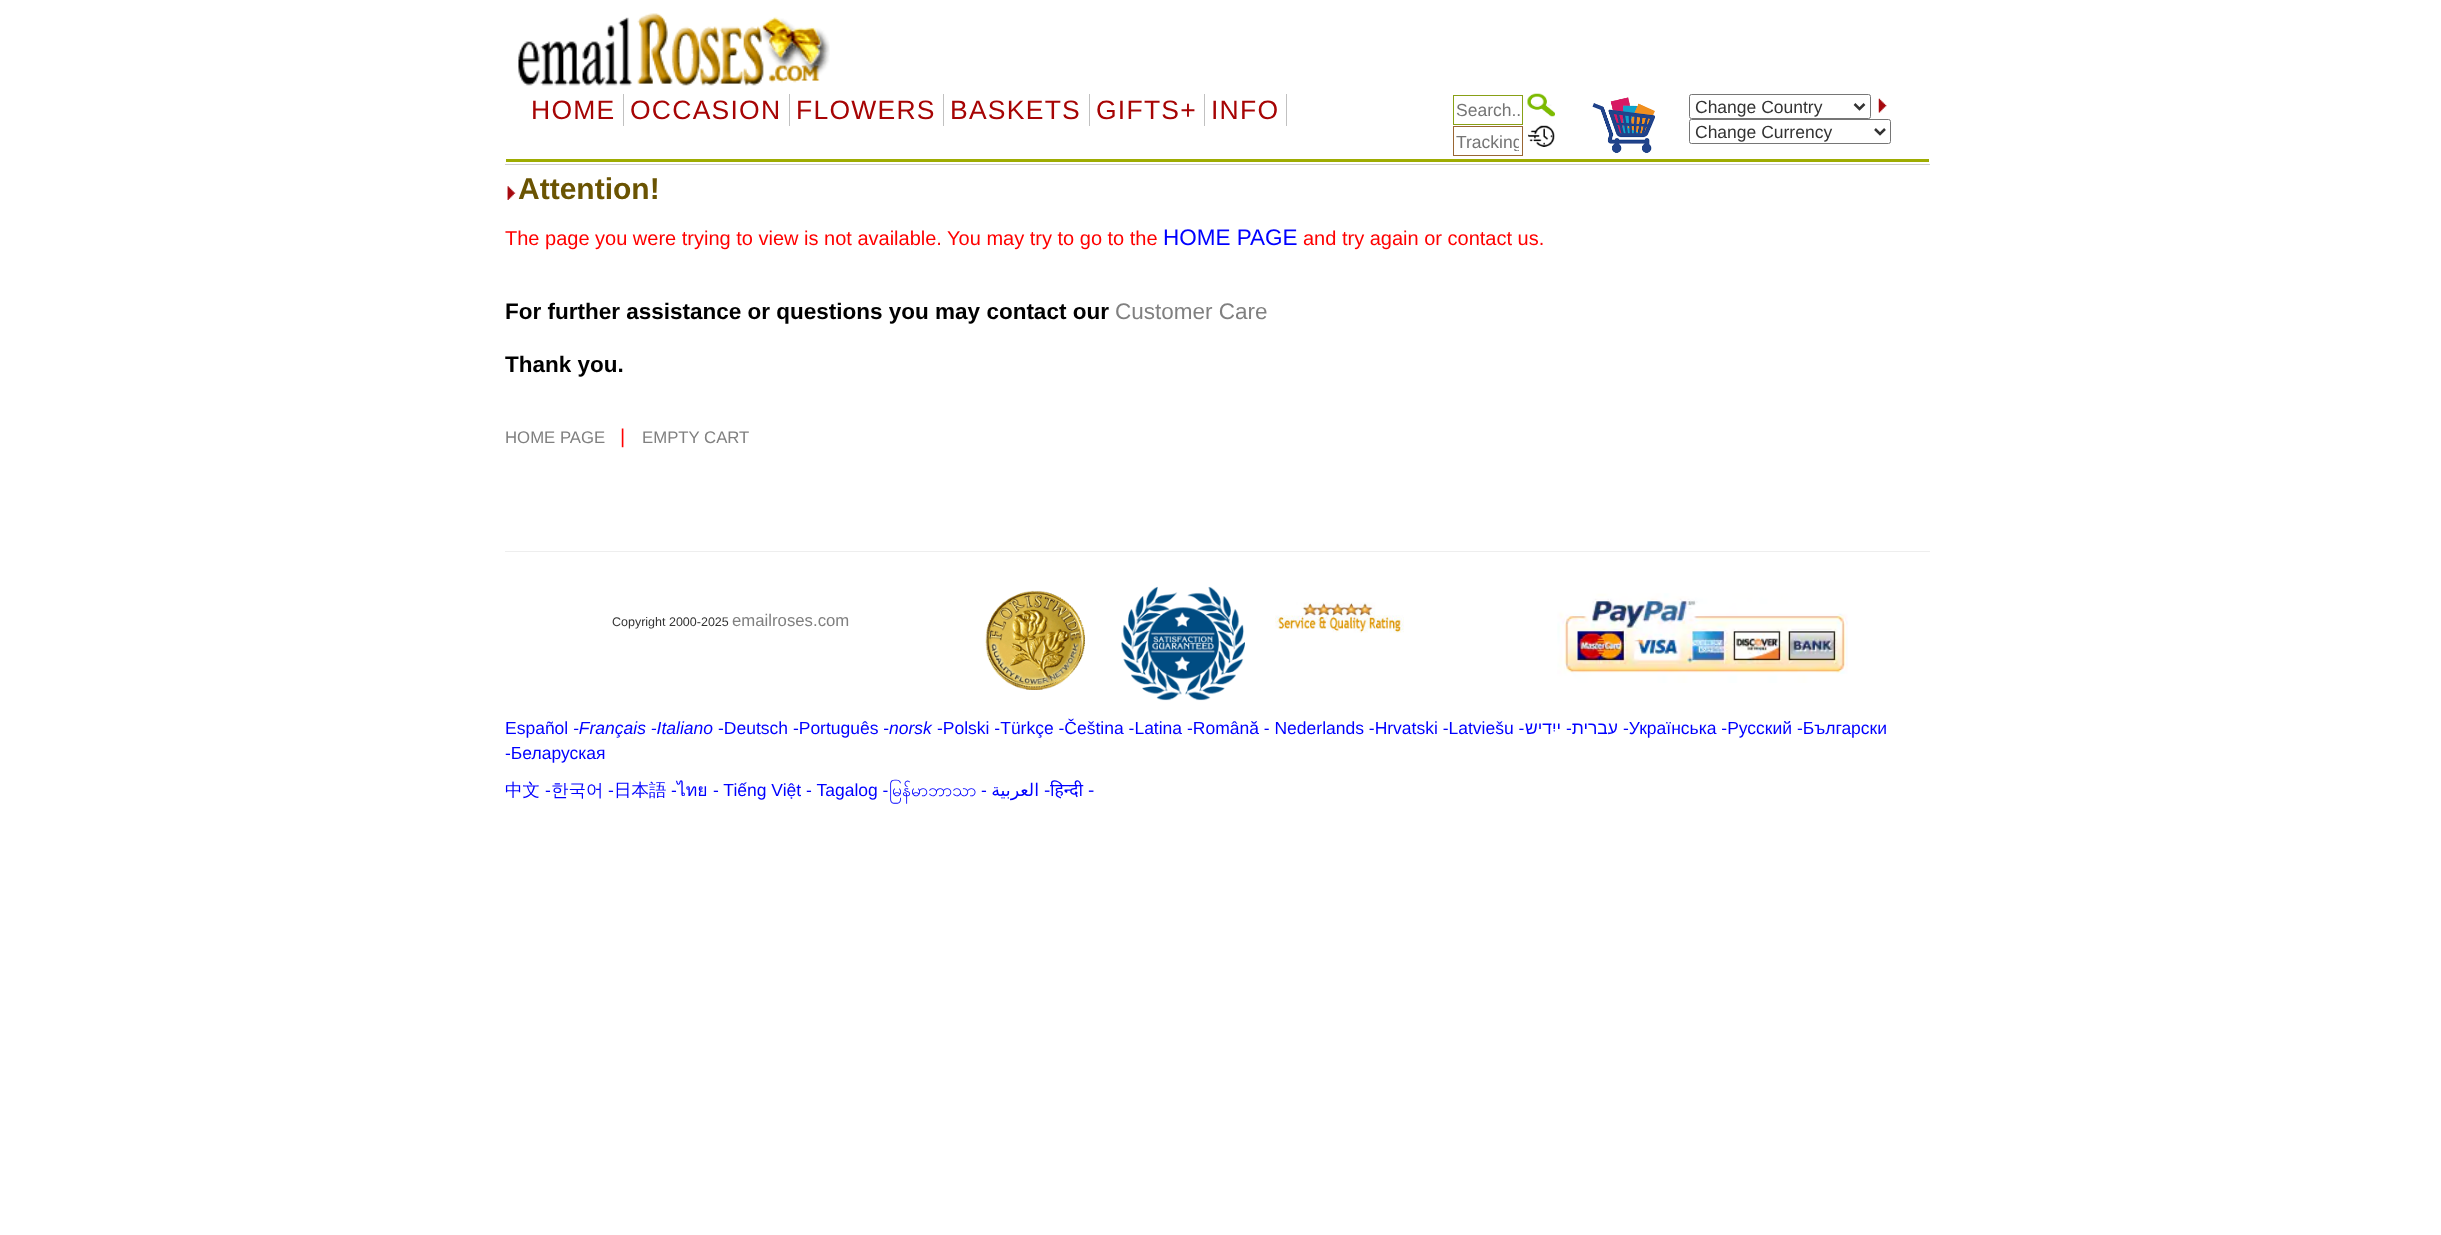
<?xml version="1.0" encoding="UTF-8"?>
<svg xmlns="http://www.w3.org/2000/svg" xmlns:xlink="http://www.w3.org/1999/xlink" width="2441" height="1235">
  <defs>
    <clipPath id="clip1"><rect x="1456" y="131" width="63" height="20" /></clipPath>
  </defs>
  <rect width="100%" height="100%" fill="#ffffff" />
  <image x="518" y="13" width="312" height="73" xlink:href="image1.png" />
  <rect x="506" y="159" width="1423" height="3" fill="#9eac01" />
  <rect x="623" y="94" width="1" height="32" fill="#c1c1c1" />
  <rect x="789" y="94" width="1" height="32" fill="#c1c1c1" />
  <rect x="943" y="94" width="1" height="32" fill="#c1c1c1" />
  <rect x="1089" y="94" width="1" height="32" fill="#c1c1c1" />
  <rect x="1204" y="94" width="1" height="32" fill="#c1c1c1" />
  <rect x="1286" y="94" width="1" height="32" fill="#c1c1c1" />
  <rect x="1453.5" y="95.5" width="69" height="29" fill="none" stroke="#88a016" />
  <image x="1527" y="93" width="28" height="24" xlink:href="image2.png" />
  <rect x="1453.5" y="126.5" width="69" height="29" fill="none" stroke="#996633" />
  <image x="1528" y="125" width="27" height="22" xlink:href="image3.png" />
  <image x="1592" y="97" width="63" height="56" xlink:href="image4.png" />
  <rect x="1689.5" y="94.5" width="181" height="24" rx="2" fill="none" stroke="#767676" />
  <path d="M 1854.5 104 l 5 5 l 5 -5" fill="none" stroke="#333333" stroke-width="2.5" />
  <image x="1878" y="98" width="9" height="15" xlink:href="image5.png" />
  <rect x="1689.5" y="119.5" width="201" height="24" rx="2" fill="none" stroke="#767676" />
  <path d="M 1875 129 l 5 5 l 5 -5" fill="none" stroke="#333333" stroke-width="2.5" />
  <rect x="505" y="164" width="1425" height="1" fill="#cccccc" />
  <image x="507" y="186" width="9" height="14" xlink:href="image6.png" />
  <rect x="505" y="551" width="1425" height="1" fill="#eeeeee" />
  <image x="985" y="590" width="100" height="100" xlink:href="image7.png" />
  <image x="1121" y="586" width="124" height="115" xlink:href="image8.png" />
  <image x="1275" y="602" width="129" height="31" xlink:href="image9.png" />
  <image x="1557" y="593" width="291" height="90" xlink:href="image10.png" />
  <text x="531" y="119" style="font-family: Liberation Sans; font-size: 26.5px; letter-spacing: 1.25px; fill: #a60404">HOME</text>
  <text x="630" y="119" style="font-family: Liberation Sans; font-size: 26.5px; letter-spacing: 1.25px; fill: #a60404">OCCASION</text>
  <text x="796" y="119" style="font-family: Liberation Sans; font-size: 26.5px; letter-spacing: 1.25px; fill: #a60404">FLOWERS</text>
  <text x="950" y="119" style="font-family: Liberation Sans; font-size: 26.5px; letter-spacing: 1.25px; fill: #a60404">BASKETS</text>
  <text x="1096" y="119" style="font-family: Liberation Sans; font-size: 26.5px; letter-spacing: 1.25px; fill: #a60404">GIFTS+</text>
  <text x="1211" y="119" style="font-family: Liberation Sans; font-size: 26.5px; letter-spacing: 1.25px; fill: #a60404">INFO</text>
  <text x="1456" y="116" style="font-family: Liberation Sans; font-size: 17.5px; fill: #757575">Search..</text>
  <g clip-path="url(#clip1)">
    <text x="1456" y="148" style="font-family: Liberation Sans; font-size: 17.5px; fill: #757575">Tracking</text>
  </g>
  <text x="1695" y="113" style="font-family: Liberation Sans; font-size: 17.5px; fill: #333333">Change Country</text>
  <text x="1695" y="138" style="font-family: Liberation Sans; font-size: 17.5px; fill: #333333">Change Currency</text>
  <text x="518" y="199" style="font-family: Liberation Sans; font-size: 30px; font-weight: bold; fill: #6a5302">Attention!</text>
  <text x="505" y="245" style="font-family: Liberation Sans; font-size: 20px; fill: #ff0000">The page you were trying to view is not available. You may try to go to the</text>
  <text x="1163" y="245" style="font-family: Liberation Sans; font-size: 22.5px; fill: #0000ff">HOME PAGE</text>
  <text x="1303" y="245" style="font-family: Liberation Sans; font-size: 20px; fill: #ff0000">and try again or contact us.</text>
  <text x="505" y="319" style="font-family: Liberation Sans; font-size: 22.5px; font-weight: bold; fill: #000000">For further assistance or questions you may contact our</text>
  <text x="1115" y="319" style="font-family: Liberation Sans; font-size: 22.5px; fill: #808080">Customer Care</text>
  <text x="505" y="372" style="font-family: Liberation Sans; font-size: 22.5px; font-weight: bold; fill: #000000">Thank you.</text>
  <text x="505" y="443" style="font-family: Liberation Sans; font-size: 16.75px; fill: #808080">HOME PAGE</text>
  <text x="620" y="443" style="font-family: Liberation Sans; font-size: 20px; fill: #ff0000">|</text>
  <text x="642" y="443" style="font-family: Liberation Sans; font-size: 16.75px; fill: #808080">EMPTY CART</text>
  <text x="612" y="626" style="font-family: Liberation Sans; font-size: 12.5px; fill: #333333">Copyright 2000-2025</text>
  <text x="732" y="626" style="font-family: Liberation Sans; font-size: 16.75px; fill: #808080">emailroses.com</text>
  <text x="505" y="734" style="font-family: Liberation Sans; font-size: 17.5px; fill: #0000ff">Español</text>
  <text x="573" y="734" style="font-family: Liberation Sans; font-size: 17.5px; font-style: italic; fill: #0000ff">-Français -Italiano</text>
  <text x="718" y="734" style="font-family: Liberation Sans; font-size: 17.5px; fill: #0000ff">-Deutsch -Português -</text>
  <text x="889" y="734" style="font-family: Liberation Sans; font-size: 17.5px; font-style: italic; fill: #0000ff">norsk</text>
  <text x="937" y="734" style="font-family: Liberation Sans; font-size: 17.5px; fill: #0000ff">-Polski -Türkçe -Čeština -Latina -Română - Nederlands -Hrvatski -Latviešu -</text>
  <text x="1561" y="734" style="font-family: Liberation Sans; font-size: 17.5px; direction: rtl; fill: #0000ff">ייִדיש</text>
  <text x="1566" y="734" style="font-family: Liberation Sans; font-size: 17.5px; fill: #0000ff">-</text>
  <text x="1618" y="734" style="font-family: Liberation Sans; font-size: 17.5px; direction: rtl; fill: #0000ff">עברית</text>
  <text x="1623" y="734" style="font-family: Liberation Sans; font-size: 17.5px; fill: #0000ff">-Українська -Русский -Български</text>
  <text x="505" y="759" style="font-family: Liberation Sans; font-size: 17.5px; fill: #0000ff">-Беларуская</text>
  <text x="505" y="796" style="font-family: WenQuanYi Zen Hei; font-size: 17.5px; font-weight: 500; fill: #0000ff">中文</text>
  <text x="545" y="796" style="font-family: Liberation Sans; font-size: 17.5px; fill: #0000ff">-</text>
  <text x="551" y="796" style="font-family: WenQuanYi Zen Hei; font-size: 17.5px; font-weight: 500; fill: #0000ff">한국어</text>
  <text x="608" y="796" style="font-family: Liberation Sans; font-size: 17.5px; fill: #0000ff">-</text>
  <text x="614" y="796" style="font-family: WenQuanYi Zen Hei; font-size: 17.5px; font-weight: 500; fill: #0000ff">日本語</text>
  <text x="671" y="796" style="font-family: Liberation Sans; font-size: 17.5px; fill: #0000ff">-</text>
  <text x="677" y="796" style="font-family: Loma; font-size: 17.5px; fill: #0000ff">ไทย</text>
  <text x="713" y="796" style="font-family: Liberation Sans; font-size: 17.5px; fill: #0000ff">- Tiếng Việt - Tagalog -</text>
  <text x="889" y="796" style="font-family: Padauk; font-size: 17.5px; fill: #0000ff">မြန်မာဘာသာ</text>
  <text x="981" y="796" style="font-family: Liberation Sans; font-size: 17.5px; fill: #0000ff">-</text>
  <text x="1039" y="796" style="font-family: DejaVu Sans; font-size: 17.5px; direction: rtl; fill: #0000ff">العربية</text>
  <text x="1044" y="796" style="font-family: DejaVu Sans; font-size: 17.5px; fill: #0000ff">-</text>
  <text x="1050" y="796" style="font-family: Noto Sans; font-size: 17.5px; fill: #0000ff">हिन्दी</text>
  <text x="1088" y="796" style="font-family: DejaVu Sans; font-size: 17.5px; fill: #0000ff">-</text>
</svg>
